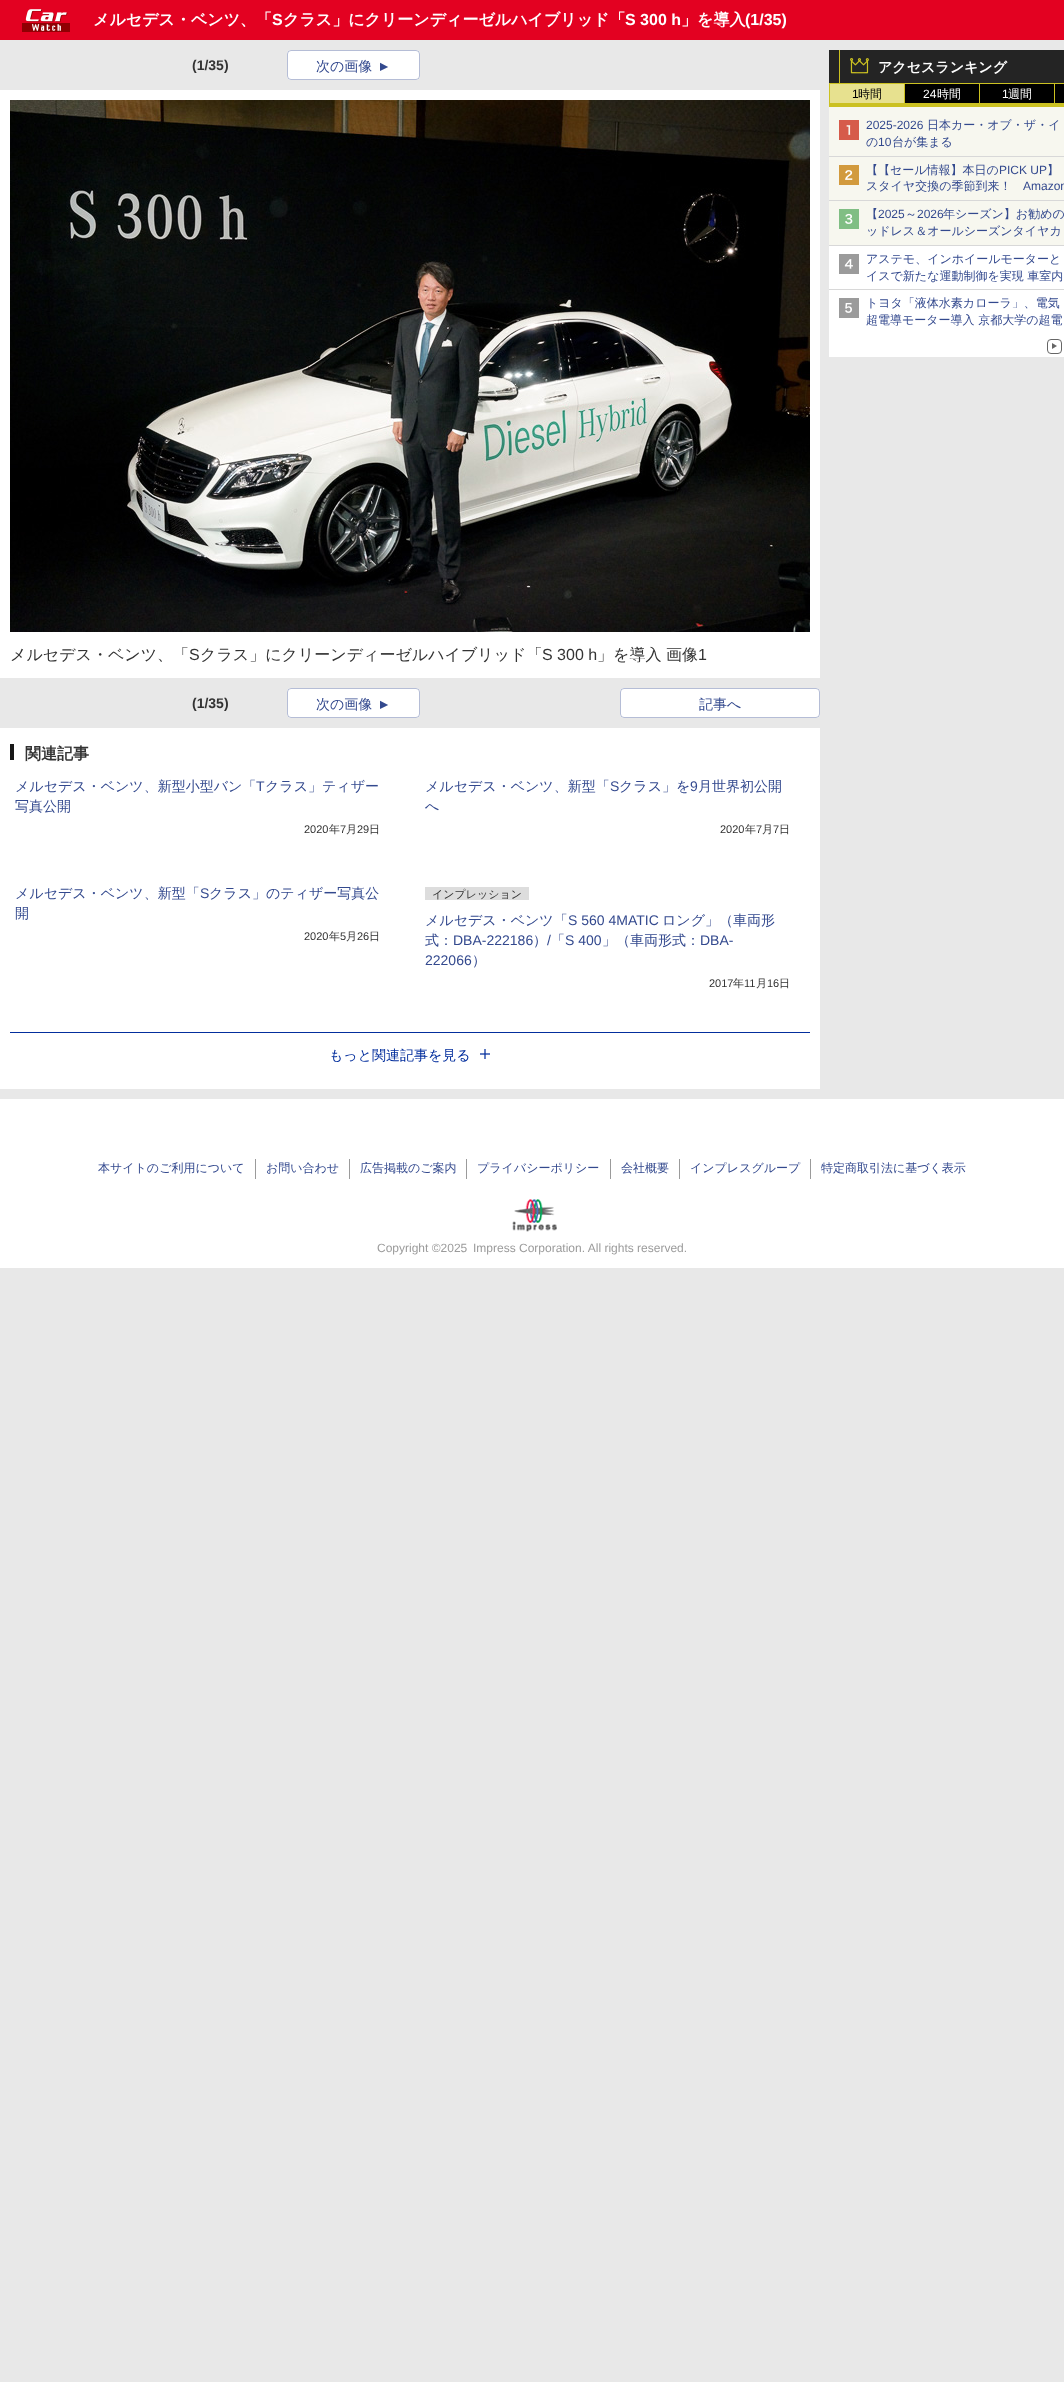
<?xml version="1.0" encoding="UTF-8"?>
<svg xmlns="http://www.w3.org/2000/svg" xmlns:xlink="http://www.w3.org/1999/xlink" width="1064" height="2382">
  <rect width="100%" height="100%" fill="#e8e8e8" />
  <rect width="1064" height="40" fill="#e30121" />
  <image x="22" y="9" width="48" height="23" xlink:href="image1.png" />
  <rect x="287" y="50" width="133" height="30" rx="4" fill="#ffffff" />
  <rect x="287.5" y="50.5" width="132" height="29" rx="3.5" fill="none" stroke="#32498e" stroke-opacity="0.36" />
  <rect y="90" width="820" height="588" fill="#ffffff" />
  <image x="10" y="100" width="800" height="532" xlink:href="image2.png" />
  <rect x="287" y="688" width="133" height="30" rx="4" fill="#ffffff" />
  <rect x="287.5" y="688.5" width="132" height="29" rx="3.5" fill="none" stroke="#32498e" stroke-opacity="0.36" />
  <rect x="620" y="688" width="200" height="30" rx="4" fill="#ffffff" />
  <rect x="620.5" y="688.5" width="199" height="29" rx="3.5" fill="none" stroke="#32498e" stroke-opacity="0.36" />
  <rect y="728" width="820" height="361" fill="#ffffff" />
  <rect x="10" y="744" width="4" height="16" fill="#181818" />
  <rect x="425" y="887" width="104" height="13" fill="#dddddd" />
  <rect x="10" y="1032" width="800" height="1" fill="#032e9d" />
  <image x="480" y="1049" width="10" height="10" xlink:href="image3.png" />
  <rect x="829" y="50" width="235" height="33" fill="#242424" />
  <rect x="829" y="83" width="235" height="1" fill="#cbc121" />
  <rect x="839" y="50" width="1" height="34" fill="#cbc121" />
  <image x="850" y="58" width="19" height="16" xlink:href="image4.png" />
  <rect x="830" y="84" width="74" height="19" fill="#e7e18f" />
  <rect x="829" y="103" width="235" height="4" fill="#cbc121" />
  <rect x="829" y="84" width="1" height="23" fill="#cbc121" />
  <rect x="905" y="84" width="74" height="19" fill="#000000" />
  <rect x="904" y="84" width="1" height="23" fill="#cbc121" />
  <rect x="980" y="84" width="74" height="19" fill="#000000" />
  <rect x="979" y="84" width="1" height="23" fill="#cbc121" />
  <rect x="1055" y="84" width="9" height="19" fill="#000000" />
  <rect x="1054" y="84" width="1" height="23" fill="#cbc121" />
  <rect x="829" y="107" width="235" height="49" fill="#f7f7ef" />
  <rect x="829" y="156" width="235" height="1" fill="#d8d8d8" />
  <image x="839" y="120" width="20" height="20" xlink:href="image5.png" />
  <rect x="829" y="157" width="235" height="43" fill="#f7f7ef" />
  <rect x="829" y="200" width="235" height="1" fill="#d8d8d8" />
  <image x="839" y="165" width="20" height="20" xlink:href="image6.png" />
  <rect x="829" y="201" width="235" height="44" fill="#f7f7ef" />
  <rect x="829" y="245" width="235" height="1" fill="#d8d8d8" />
  <image x="839" y="209" width="20" height="20" xlink:href="image7.png" />
  <rect x="829" y="246" width="235" height="111" fill="#ffffff" />
  <rect x="829" y="289" width="235" height="1" fill="#d8d8d8" />
  <image x="839" y="254" width="20" height="20" xlink:href="image8.png" />
  <image x="839" y="298" width="20" height="20" xlink:href="image9.png" />
  <rect x="1047.5" y="339.5" width="14" height="14" rx="3.5" fill="none" stroke="#666666" />
  <path d="M 1052 349 v -6 l 5 3 z" fill="#666666" />
  <rect y="1099" width="1064" height="169" fill="#ffffff" />
  <rect x="255" y="1159" width="1" height="20" fill="#9b9b9b" />
  <rect x="349" y="1159" width="1" height="20" fill="#9b9b9b" />
  <rect x="466" y="1159" width="1" height="20" fill="#9b9b9b" />
  <rect x="610" y="1159" width="1" height="20" fill="#9b9b9b" />
  <rect x="679" y="1159" width="1" height="20" fill="#9b9b9b" />
  <rect x="810" y="1159" width="1" height="20" fill="#9b9b9b" />
  <image x="512" y="1199" width="45" height="33" xlink:href="image10.png" />
  <text x="93" y="25" style="font-family: WenQuanYi Zen Hei; font-size: 16px; font-weight: bold; fill: #ffffff">メルセデス・ベンツ、「</text>
  <text x="272" y="25" style="font-family: Liberation Sans; font-size: 16px; font-weight: bold; fill: #ffffff">S</text>
  <text x="283" y="25" style="font-family: WenQuanYi Zen Hei; font-size: 16px; font-weight: bold; fill: #ffffff">クラス」にクリーンディーゼルハイブリッド「</text>
  <text x="625" y="25" style="font-family: Liberation Sans; font-size: 16px; font-weight: bold; fill: #ffffff">S 300 h</text>
  <text x="681" y="25" style="font-family: WenQuanYi Zen Hei; font-size: 16px; font-weight: bold; fill: #ffffff">」を導入</text>
  <text x="745" y="25" style="font-family: Liberation Sans; font-size: 16px; font-weight: bold; fill: #ffffff">(1/35)</text>
  <text x="192" y="70" style="font-family: Liberation Sans; font-size: 14px; font-weight: bold; fill: #333333">(1/35)</text>
  <text x="316" y="71" style="font-family: WenQuanYi Zen Hei; font-size: 14px; font-weight: 500; fill: #33498e">次の画像</text>
  <text x="380" y="60" transform="rotate(90 380 60)" style="font-family: Liberation Sans; font-size: 14px; fill: #33498e">▲</text>
  <text x="10" y="660" style="font-family: WenQuanYi Zen Hei; font-size: 16px; font-weight: 500; fill: #333333">メルセデス・ベンツ、「</text>
  <text x="189" y="660" style="font-family: Liberation Sans; font-size: 16px; fill: #333333">S</text>
  <text x="200" y="660" style="font-family: WenQuanYi Zen Hei; font-size: 16px; font-weight: 500; fill: #333333">クラス」にクリーンディーゼルハイブリッド「</text>
  <text x="542" y="660" style="font-family: Liberation Sans; font-size: 16px; fill: #333333">S 300 h</text>
  <text x="597" y="660" style="font-family: WenQuanYi Zen Hei; font-size: 16px; font-weight: 500; fill: #333333">」を導入</text>
  <text x="666" y="660" style="font-family: WenQuanYi Zen Hei; font-size: 16px; font-weight: 500; fill: #333333">画像</text>
  <text x="698" y="660" style="font-family: Liberation Sans; font-size: 16px; fill: #333333">1</text>
  <text x="192" y="708" style="font-family: Liberation Sans; font-size: 14px; font-weight: bold; fill: #333333">(1/35)</text>
  <text x="316" y="709" style="font-family: WenQuanYi Zen Hei; font-size: 14px; font-weight: 500; fill: #33498e">次の画像</text>
  <text x="380" y="698" transform="rotate(90 380 698)" style="font-family: Liberation Sans; font-size: 14px; fill: #33498e">▲</text>
  <text x="699" y="709" style="font-family: WenQuanYi Zen Hei; font-size: 14px; font-weight: 500; fill: #33498e">記事へ</text>
  <text x="25" y="759" style="font-family: WenQuanYi Zen Hei; font-size: 16px; font-weight: bold; fill: #333333">関連記事</text>
  <text x="15" y="791" style="font-family: WenQuanYi Zen Hei; font-size: 14px; font-weight: 500; fill: #33498e">メルセデス・ベンツ、新型小型バン「</text>
  <text x="256" y="791" style="font-family: Liberation Sans; font-size: 14px; fill: #33498e">T</text>
  <text x="265" y="791" style="font-family: WenQuanYi Zen Hei; font-size: 14px; font-weight: 500; fill: #33498e">クラス」ティザー</text>
  <text x="15" y="811" style="font-family: WenQuanYi Zen Hei; font-size: 14px; font-weight: 500; fill: #33498e">写真公開</text>
  <text x="304" y="833" style="font-family: Liberation Sans; font-size: 11px; fill: #333333">2020</text>
  <text x="329" y="833" style="font-family: WenQuanYi Zen Hei; font-size: 11px; font-weight: 500; fill: #333333">年</text>
  <text x="340" y="833" style="font-family: Liberation Sans; font-size: 11px; fill: #333333">7</text>
  <text x="346" y="833" style="font-family: WenQuanYi Zen Hei; font-size: 11px; font-weight: 500; fill: #333333">月</text>
  <text x="357" y="833" style="font-family: Liberation Sans; font-size: 11px; fill: #333333">29</text>
  <text x="369" y="833" style="font-family: WenQuanYi Zen Hei; font-size: 11px; font-weight: 500; fill: #333333">日</text>
  <text x="425" y="791" style="font-family: WenQuanYi Zen Hei; font-size: 14px; font-weight: 500; fill: #33498e">メルセデス・ベンツ、新型「</text>
  <text x="610" y="791" style="font-family: Liberation Sans; font-size: 14px; fill: #33498e">S</text>
  <text x="619" y="791" style="font-family: WenQuanYi Zen Hei; font-size: 14px; font-weight: 500; fill: #33498e">クラス」を</text>
  <text x="690" y="791" style="font-family: Liberation Sans; font-size: 14px; fill: #33498e">9</text>
  <text x="698" y="791" style="font-family: WenQuanYi Zen Hei; font-size: 14px; font-weight: 500; fill: #33498e">月世界初公開</text>
  <text x="425" y="811" style="font-family: WenQuanYi Zen Hei; font-size: 14px; font-weight: 500; fill: #33498e">へ</text>
  <text x="720" y="833" style="font-family: Liberation Sans; font-size: 11px; fill: #333333">2020</text>
  <text x="745" y="833" style="font-family: WenQuanYi Zen Hei; font-size: 11px; font-weight: 500; fill: #333333">年</text>
  <text x="756" y="833" style="font-family: Liberation Sans; font-size: 11px; fill: #333333">7</text>
  <text x="762" y="833" style="font-family: WenQuanYi Zen Hei; font-size: 11px; font-weight: 500; fill: #333333">月</text>
  <text x="773" y="833" style="font-family: Liberation Sans; font-size: 11px; fill: #333333">7</text>
  <text x="779" y="833" style="font-family: WenQuanYi Zen Hei; font-size: 11px; font-weight: 500; fill: #333333">日</text>
  <text x="15" y="898" style="font-family: WenQuanYi Zen Hei; font-size: 14px; font-weight: 500; fill: #33498e">メルセデス・ベンツ、新型「</text>
  <text x="200" y="898" style="font-family: Liberation Sans; font-size: 14px; fill: #33498e">S</text>
  <text x="209" y="898" style="font-family: WenQuanYi Zen Hei; font-size: 14px; font-weight: 500; fill: #33498e">クラス」のティザー写真公</text>
  <text x="15" y="918" style="font-family: WenQuanYi Zen Hei; font-size: 14px; font-weight: 500; fill: #33498e">開</text>
  <text x="304" y="940" style="font-family: Liberation Sans; font-size: 11px; fill: #333333">2020</text>
  <text x="329" y="940" style="font-family: WenQuanYi Zen Hei; font-size: 11px; font-weight: 500; fill: #333333">年</text>
  <text x="340" y="940" style="font-family: Liberation Sans; font-size: 11px; fill: #333333">5</text>
  <text x="346" y="940" style="font-family: WenQuanYi Zen Hei; font-size: 11px; font-weight: 500; fill: #333333">月</text>
  <text x="357" y="940" style="font-family: Liberation Sans; font-size: 11px; fill: #333333">26</text>
  <text x="369" y="940" style="font-family: WenQuanYi Zen Hei; font-size: 11px; font-weight: 500; fill: #333333">日</text>
  <text x="432" y="898" style="font-family: WenQuanYi Zen Hei; font-size: 11px; font-weight: 500; fill: #333333">インプレッション</text>
  <text x="425" y="925" style="font-family: WenQuanYi Zen Hei; font-size: 14px; font-weight: 500; fill: #33498e">メルセデス・ベンツ「</text>
  <text x="568" y="925" style="font-family: Liberation Sans; font-size: 14px; fill: #33498e">S 560 4MATIC</text>
  <text x="662" y="925" style="font-family: WenQuanYi Zen Hei; font-size: 14px; font-weight: 500; fill: #33498e">ロング」（車両形</text>
  <text x="425" y="945" style="font-family: WenQuanYi Zen Hei; font-size: 14px; font-weight: 500; fill: #33498e">式：</text>
  <text x="453" y="945" style="font-family: Liberation Sans; font-size: 14px; fill: #33498e">DBA-222186</text>
  <text x="533" y="945" style="font-family: WenQuanYi Zen Hei; font-size: 14px; font-weight: 500; fill: #33498e">）</text>
  <text x="547" y="945" style="font-family: Liberation Sans; font-size: 14px; fill: #33498e">/</text>
  <text x="551" y="945" style="font-family: WenQuanYi Zen Hei; font-size: 14px; font-weight: 500; fill: #33498e">「</text>
  <text x="565" y="945" style="font-family: Liberation Sans; font-size: 14px; fill: #33498e">S 400</text>
  <text x="602" y="945" style="font-family: WenQuanYi Zen Hei; font-size: 14px; font-weight: 500; fill: #33498e">」（車両形式：</text>
  <text x="700" y="945" style="font-family: Liberation Sans; font-size: 14px; fill: #33498e">DBA-</text>
  <text x="425" y="965" style="font-family: Liberation Sans; font-size: 14px; fill: #33498e">222066</text>
  <text x="472" y="965" style="font-family: WenQuanYi Zen Hei; font-size: 14px; font-weight: 500; fill: #33498e">）</text>
  <text x="709" y="987" style="font-family: Liberation Sans; font-size: 11px; fill: #333333">2017</text>
  <text x="733" y="987" style="font-family: WenQuanYi Zen Hei; font-size: 11px; font-weight: 500; fill: #333333">年</text>
  <text x="744" y="987" style="font-family: Liberation Sans; font-size: 11px; fill: #333333">11</text>
  <text x="756" y="987" style="font-family: WenQuanYi Zen Hei; font-size: 11px; font-weight: 500; fill: #333333">月</text>
  <text x="767" y="987" style="font-family: Liberation Sans; font-size: 11px; fill: #333333">16</text>
  <text x="779" y="987" style="font-family: WenQuanYi Zen Hei; font-size: 11px; font-weight: 500; fill: #333333">日</text>
  <text x="329" y="1060" style="font-family: WenQuanYi Zen Hei; font-size: 14px; font-weight: 500; fill: #032e9d">もっと関連記事を見る</text>
  <text x="878" y="72" style="font-family: WenQuanYi Zen Hei; font-size: 14px; font-weight: bold; fill: #ffffff">アクセスランキング</text>
  <text x="852" y="98" style="font-family: Liberation Sans; font-size: 12px; fill: #000000">1</text>
  <text x="858" y="98" style="font-family: WenQuanYi Zen Hei; font-size: 12px; font-weight: 500; fill: #000000">時間</text>
  <text x="923" y="98" style="font-family: Liberation Sans; font-size: 12px; fill: #ffffff">24</text>
  <text x="937" y="98" style="font-family: WenQuanYi Zen Hei; font-size: 12px; font-weight: 500; fill: #ffffff">時間</text>
  <text x="1002" y="98" style="font-family: Liberation Sans; font-size: 12px; fill: #ffffff">1</text>
  <text x="1008" y="98" style="font-family: WenQuanYi Zen Hei; font-size: 12px; font-weight: 500; fill: #ffffff">週間</text>
  <text x="866" y="129" style="font-family: Liberation Sans; font-size: 12px; fill: #33498e">2025-2026</text>
  <text x="927" y="129" style="font-family: WenQuanYi Zen Hei; font-size: 12px; font-weight: 500; fill: #33498e">日本カー・オブ・ザ・イ</text>
  <text x="866" y="146" style="font-family: WenQuanYi Zen Hei; font-size: 12px; font-weight: 500; fill: #33498e">の</text>
  <text x="878" y="146" style="font-family: Liberation Sans; font-size: 12px; fill: #33498e">10</text>
  <text x="892" y="146" style="font-family: WenQuanYi Zen Hei; font-size: 12px; font-weight: 500; fill: #33498e">台が集まる</text>
  <text x="866" y="174" style="font-family: WenQuanYi Zen Hei; font-size: 12px; font-weight: 500; fill: #33498e">【【セール情報】本日の</text>
  <text x="999" y="174" style="font-family: Liberation Sans; font-size: 12px; fill: #33498e">PICK UP</text>
  <text x="1047" y="174" style="font-family: WenQuanYi Zen Hei; font-size: 12px; font-weight: 500; fill: #33498e">】</text>
  <text x="866" y="190" style="font-family: WenQuanYi Zen Hei; font-size: 12px; font-weight: 500; fill: #33498e">スタイヤ交換の季節到来！</text>
  <text x="1023" y="190" style="font-family: Liberation Sans; font-size: 12px; fill: #33498e">Amazon</text>
  <text x="866" y="218" style="font-family: WenQuanYi Zen Hei; font-size: 12px; font-weight: 500; fill: #33498e">【</text>
  <text x="878" y="218" style="font-family: Liberation Sans; font-size: 12px; fill: #33498e">2025</text>
  <text x="905" y="218" style="font-family: WenQuanYi Zen Hei; font-size: 12px; font-weight: 500; fill: #33498e">～</text>
  <text x="917" y="218" style="font-family: Liberation Sans; font-size: 12px; fill: #33498e">2026</text>
  <text x="943" y="218" style="font-family: WenQuanYi Zen Hei; font-size: 12px; font-weight: 500; fill: #33498e">年シーズン】お勧めの</text>
  <text x="866" y="235" style="font-family: WenQuanYi Zen Hei; font-size: 12px; font-weight: 500; fill: #33498e">ッドレス＆オールシーズンタイヤカ</text>
  <text x="866" y="263" style="font-family: WenQuanYi Zen Hei; font-size: 12px; font-weight: 500; fill: #33498e">アステモ、インホイールモーターと</text>
  <text x="866" y="280" style="font-family: WenQuanYi Zen Hei; font-size: 12px; font-weight: 500; fill: #33498e">イスで新たな運動制御を実現 車室内</text>
  <text x="866" y="307" style="font-family: WenQuanYi Zen Hei; font-size: 12px; font-weight: 500; fill: #33498e">トヨタ「液体水素カローラ」、電気</text>
  <text x="866" y="324" style="font-family: WenQuanYi Zen Hei; font-size: 12px; font-weight: 500; fill: #33498e">超電導モーター導入 京都大学の超電</text>
  <text x="98" y="1172" style="font-family: WenQuanYi Zen Hei; font-size: 12px; font-weight: 500; fill: #33498e">本サイトのご利用について</text>
  <text x="266" y="1172" style="font-family: WenQuanYi Zen Hei; font-size: 12px; font-weight: 500; fill: #33498e">お問い合わせ</text>
  <text x="360" y="1172" style="font-family: WenQuanYi Zen Hei; font-size: 12px; font-weight: 500; fill: #33498e">広告掲載のご案内</text>
  <text x="477" y="1172" style="font-family: WenQuanYi Zen Hei; font-size: 12px; font-weight: 500; fill: #33498e">プライバシーポリシー</text>
  <text x="621" y="1172" style="font-family: WenQuanYi Zen Hei; font-size: 12px; font-weight: 500; fill: #33498e">会社概要</text>
  <text x="690" y="1172" style="font-family: WenQuanYi Zen Hei; font-size: 12px; font-weight: 500; fill: #33498e">インプレスグループ</text>
  <text x="821" y="1172" style="font-family: WenQuanYi Zen Hei; font-size: 12px; font-weight: 500; fill: #33498e">特定商取引法に基づく表示</text>
  <text x="377" y="1252" style="font-family: Liberation Sans; font-size: 12px; fill: #9b9b9b">Copyright ©2025</text>
  <text x="473" y="1252" style="font-family: Liberation Sans; font-size: 12px; fill: #9b9b9b">Impress Corporation. All rights reserved.</text>
</svg>
